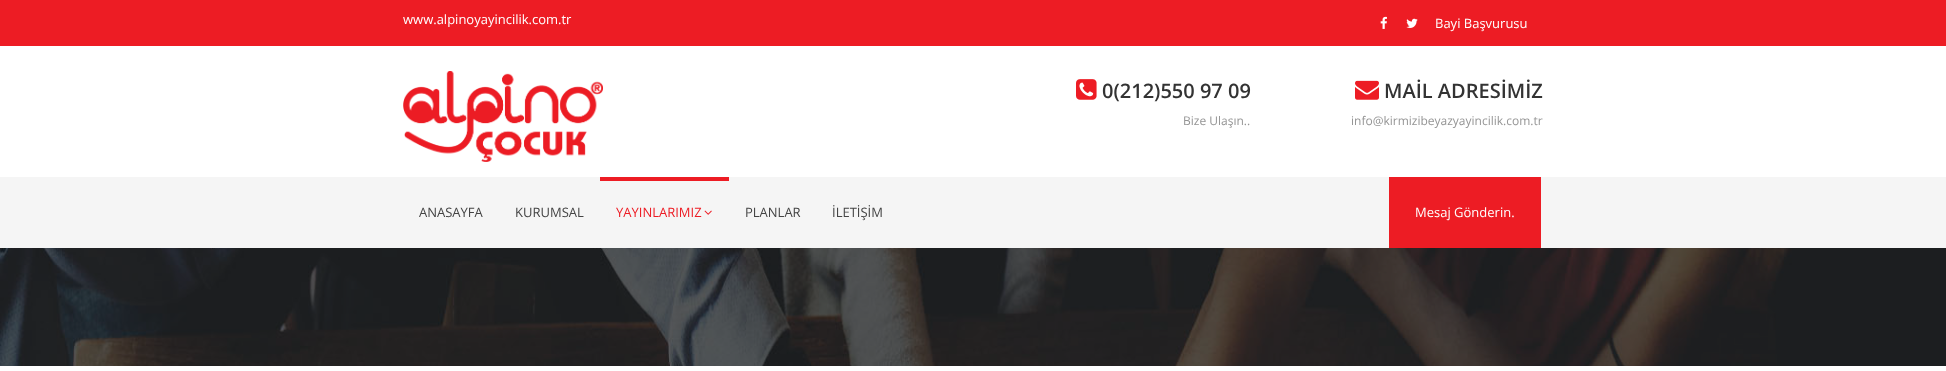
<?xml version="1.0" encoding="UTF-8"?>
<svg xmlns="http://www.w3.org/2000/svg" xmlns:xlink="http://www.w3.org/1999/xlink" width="1946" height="371">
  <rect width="100%" height="100%" fill="#ffffff" />
  <rect width="1946" height="46" fill="#ed1c24" />
  <image x="1380" y="16" width="7" height="13" xlink:href="image1.png" />
  <image x="1406" y="18" width="12" height="10" xlink:href="image2.png" />
  <image x="403" y="71" width="200" height="91" xlink:href="image3.png" />
  <image x="1076" y="79" width="21" height="21" xlink:href="image4.png" />
  <image x="1355" y="80" width="24" height="20" xlink:href="image5.png" />
  <rect y="177" width="1946" height="71" fill="#f5f5f5" />
  <rect x="600" y="177" width="129" height="4" fill="#ed1c24" />
  <image x="704" y="210" width="8" height="5" xlink:href="image6.png" />
  <rect x="1389" y="177" width="152" height="71" fill="#ed1c24" />
  <image x="0" y="248" width="1946" height="118" xlink:href="image7.png" />
  <text x="403" y="24" style="font-family: Open Sans; font-size: 13px; fill: #ffffff">www.alpinoyayincilik.com.tr</text>
  <text x="1435" y="28" style="font-family: Open Sans; font-size: 13px; fill: #ffffff">Bayi Başvurusu</text>
  <text x="1102" y="98" style="font-family: Open Sans; font-size: 20px; font-weight: 600; fill: #333333">0(212)550 97 09</text>
  <text x="1183" y="125" style="font-family: Open Sans; font-size: 12px; fill: #959595">Bize Ulaşın..</text>
  <text x="1384" y="98" style="font-family: Open Sans; font-size: 20px; font-weight: 600; fill: #333333">MAİL ADRESİMİZ</text>
  <text x="1351" y="125" style="font-family: Open Sans; font-size: 12px; fill: #959595">info@kirmizibeyazyayincilik.com.tr</text>
  <text x="419" y="217" style="font-family: Open Sans; font-size: 13px; fill: #444444">ANASAYFA</text>
  <text x="515" y="217" style="font-family: Open Sans; font-size: 13px; fill: #444444">KURUMSAL</text>
  <text x="616" y="217" style="font-family: Open Sans; font-size: 13px; fill: #ed1c24">YAYINLARIMIZ</text>
  <text x="745" y="217" style="font-family: Open Sans; font-size: 13px; fill: #444444">PLANLAR</text>
  <text x="832" y="217" style="font-family: Open Sans; font-size: 13px; fill: #444444">İLETİŞİM</text>
  <text x="1415" y="217" style="font-family: Open Sans; font-size: 13px; fill: #ffffff">Mesaj Gönderin.</text>
</svg>
